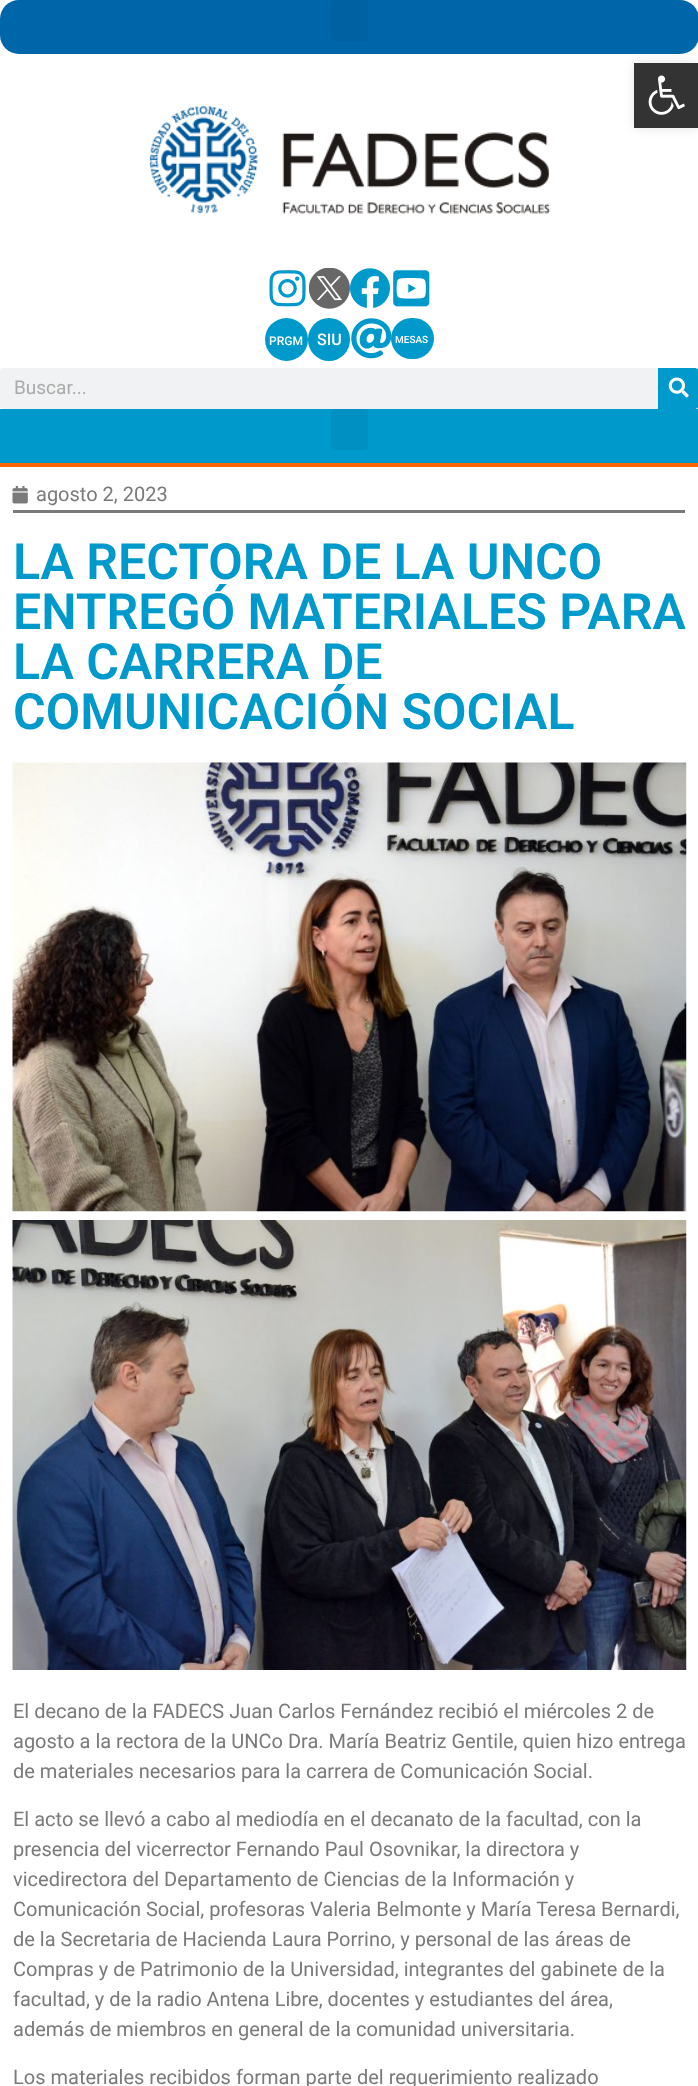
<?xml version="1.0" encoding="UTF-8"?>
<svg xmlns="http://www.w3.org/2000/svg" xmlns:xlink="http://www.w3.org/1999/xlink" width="698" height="2086">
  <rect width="100%" height="100%" fill="#ffffff" />
  <rect width="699" height="54" rx="19" fill="#0066aa" />
  <rect x="634" y="63" width="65" height="65" fill="#000000" fill-opacity="0.1" filter="blur(6px)" />
  <rect x="634" y="63" width="64" height="65" fill="#333333" />
  <image x="648" y="75" width="37" height="40" xlink:href="image1.png" />
  <rect x="331" width="37" height="41" rx="4" fill="#0061a2" />
  <image x="149" y="106" width="402" height="108" xlink:href="image2.png" />
  <image x="269" y="270" width="37" height="37" xlink:href="image3.png" />
  <image x="309" y="268" width="41" height="41" xlink:href="image4.png" />
  <image x="350" y="268" width="40" height="40" xlink:href="image5.png" />
  <image x="393" y="270" width="37" height="37" xlink:href="image6.png" />
  <circle cx="286.5" cy="339.5" r="21.5" fill="#0099cc" />
  <rect x="308" y="318" width="42" height="43" rx="21" fill="#0099cc" />
  <image x="351" y="318" width="41" height="41" xlink:href="image7.png" />
  <rect x="391" y="318" width="43" height="41" rx="20.5" fill="#0099cc" />
  <rect y="368" width="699" height="41" rx="4" fill="#f1f2f3" />
  <path d="M 658 368 h 37 c 2 0 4 2 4 4 v 33 c 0 2 -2 4 -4 4 h -37 z" fill="#0099cc" />
  <image x="668" y="377" width="21" height="21" xlink:href="image8.png" />
  <rect y="409" width="698" height="54" fill="#0099cc" />
  <rect y="463" width="698" height="4" fill="#ff6600" />
  <rect x="331" y="409" width="37" height="41" rx="4" fill="#0091c2" />
  <rect x="13" y="510" width="672" height="3" fill="#7a7a7a" />
  <image x="12" y="485" width="16" height="19" xlink:href="image9.png" />
  <image x="12" y="762" width="675" height="450" xlink:href="image10.png" />
  <image x="12" y="1220" width="675" height="450" xlink:href="image11.png" />
  <text x="269" y="345" style="font-family: Roboto; font-size: 12px; font-weight: 500; fill: #ffffff">PRGM</text>
  <text x="317" y="345" style="font-family: Roboto; font-size: 16px; font-weight: 500; fill: #ffffff">SIU</text>
  <text x="395" y="343" style="font-family: Roboto; font-size: 10px; font-weight: 500; fill: #ffffff">MESAS</text>
  <text x="14" y="394" style="font-family: Roboto; font-size: 19px; fill: #aaaaaa">Buscar...</text>
  <text x="36" y="501" style="font-family: Roboto; font-size: 20px; fill: #7a7a7a">agosto 2, 2023</text>
  <text x="13" y="579" style="font-family: Roboto; font-size: 50px; font-weight: 600; fill: #0099cc">LA RECTORA DE LA UNCO</text>
  <text x="13" y="629" style="font-family: Roboto; font-size: 50px; font-weight: 600; fill: #0099cc">ENTREGÓ MATERIALES PARA</text>
  <text x="13" y="679" style="font-family: Roboto; font-size: 50px; font-weight: 600; fill: #0099cc">LA CARRERA DE</text>
  <text x="13" y="729" style="font-family: Roboto; font-size: 50px; font-weight: 600; fill: #0099cc">COMUNICACIÓN SOCIAL</text>
  <text x="13" y="1718" style="font-family: Roboto; font-size: 20px; fill: #7a7a7a">El decano de la FADECS Juan Carlos Fernández recibió el miércoles 2 de</text>
  <text x="13" y="1748" style="font-family: Roboto; font-size: 20px; fill: #7a7a7a">agosto a la rectora de la UNCo Dra. María Beatriz Gentile, quien hizo entrega</text>
  <text x="13" y="1778" style="font-family: Roboto; font-size: 20px; fill: #7a7a7a">de materiales necesarios para la carrera de Comunicación Social.</text>
  <text x="13" y="1826" style="font-family: Roboto; font-size: 20px; fill: #7a7a7a">El acto se llevó a cabo al mediodía en el decanato de la facultad, con la</text>
  <text x="13" y="1856" style="font-family: Roboto; font-size: 20px; fill: #7a7a7a">presencia del vicerrector Fernando Paul Osovnikar, la directora y</text>
  <text x="13" y="1886" style="font-family: Roboto; font-size: 20px; fill: #7a7a7a">vicedirectora del Departamento de Ciencias de la Información y</text>
  <text x="13" y="1916" style="font-family: Roboto; font-size: 20px; fill: #7a7a7a">Comunicación Social, profesoras Valeria Belmonte y María Teresa Bernardi,</text>
  <text x="13" y="1946" style="font-family: Roboto; font-size: 20px; fill: #7a7a7a">de la Secretaria de Hacienda Laura Porrino, y personal de las áreas de</text>
  <text x="13" y="1976" style="font-family: Roboto; font-size: 20px; fill: #7a7a7a">Compras y de Patrimonio de la Universidad, integrantes del gabinete de la</text>
  <text x="13" y="2006" style="font-family: Roboto; font-size: 20px; fill: #7a7a7a">facultad, y de la radio Antena Libre, docentes y estudiantes del área,</text>
  <text x="13" y="2036" style="font-family: Roboto; font-size: 20px; fill: #7a7a7a">además de miembros en general de la comunidad universitaria.</text>
  <text x="13" y="2084" style="font-family: Roboto; font-size: 20px; fill: #7a7a7a">Los materiales recibidos forman parte del requerimiento realizado</text>
</svg>
